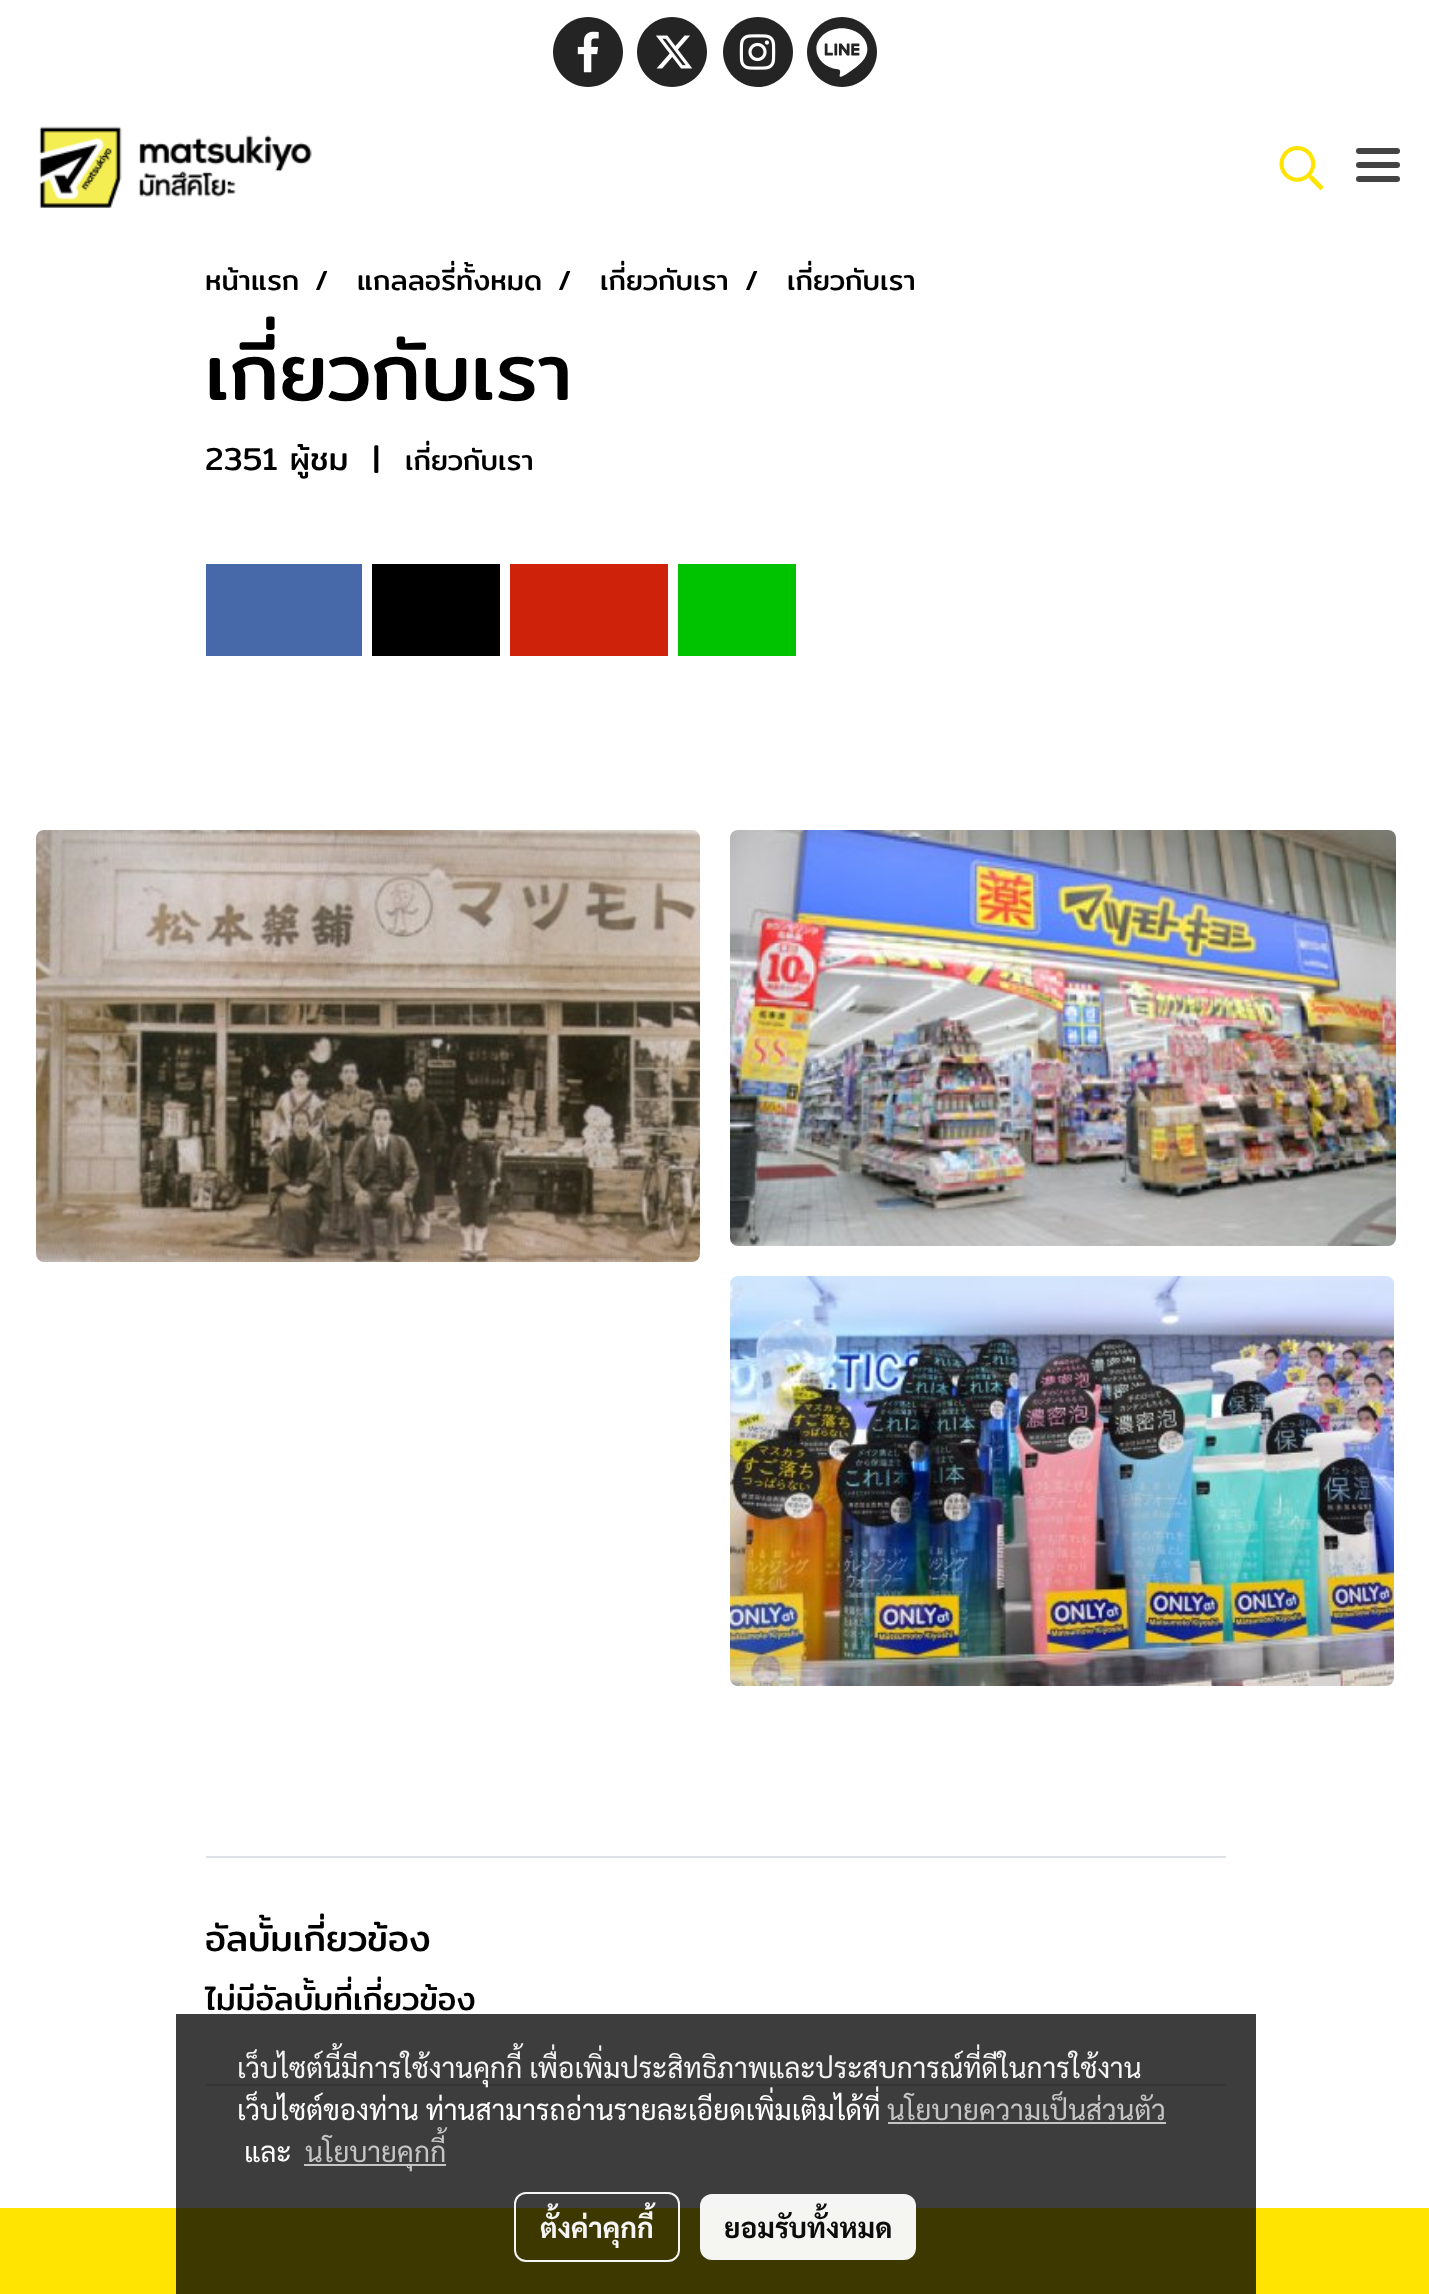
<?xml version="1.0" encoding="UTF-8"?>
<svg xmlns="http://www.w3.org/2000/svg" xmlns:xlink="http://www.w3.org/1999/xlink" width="1429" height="2294">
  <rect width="100%" height="100%" fill="#ffffff" />
  <rect x="176" y="2014" width="1080" height="194" fill="#3d3d3d" />
  <path d="M 588 17 c -19 0 -35 16 -35 35 c 0 19 16 35 35 35 c 19 0 35 -16 35 -35 c 0 -19 -16 -35 -35 -35 z" fill="#242424" />
  <image x="577" y="31" width="22" height="42" xlink:href="image1.png" />
  <path d="M 672 17 c -19 0 -35 16 -35 35 c 0 19 16 35 35 35 c 19 0 35 -16 35 -35 c 0 -19 -16 -35 -35 -35 z" fill="#242424" />
  <image x="656" y="35" width="37" height="34" xlink:href="image2.png" />
  <path d="M 758 17 c -19 0 -35 16 -35 35 c 0 19 16 35 35 35 c 19 0 35 -16 35 -35 c 0 -19 -16 -35 -35 -35 z" fill="#242424" />
  <image x="739" y="34" width="37" height="36" xlink:href="image3.png" />
  <path d="M 842 17 c -19 0 -35 16 -35 35 c 0 19 16 35 35 35 c 19 0 35 -16 35 -35 c 0 -19 -16 -35 -35 -35 z" fill="#242424" />
  <image x="816" y="28" width="52" height="49" xlink:href="image4.png" />
  <image x="39" y="126" width="273" height="82" xlink:href="image5.png" />
  <image x="1279" y="146" width="45" height="44" xlink:href="image6.png" />
  <rect x="1356" y="162" width="44" height="6" rx="3" fill="#434343" />
  <rect x="1356" y="148" width="44" height="6" rx="3" fill="#434343" />
  <rect x="1356" y="176" width="44" height="6" rx="3" fill="#434343" />
  <rect x="206" y="564" width="156" height="92" fill="#4769a9" />
  <rect x="372" y="564" width="128" height="92" fill="#000000" />
  <rect x="510" y="564" width="158" height="92" fill="#ce220a" />
  <rect x="678" y="564" width="118" height="92" fill="#00c300" />
  <image x="36" y="830" width="664" height="432" xlink:href="image7.png" />
  <image x="730" y="830" width="666" height="416" xlink:href="image8.png" />
  <image x="730" y="1276" width="664" height="410" xlink:href="image9.png" />
  <rect x="206" y="1856" width="1020" height="2" fill="#dee2e6" />
  <rect x="206" y="2084" width="1020" height="2" fill="#353637" />
  <rect y="2208" width="1429" height="86" fill="#ffe402" />
  <rect x="176" y="2208" width="1080" height="86" fill="#3d3700" />
  <rect x="888" y="2122" width="278" height="2" fill="#c5c5c5" />
  <rect x="304" y="2164" width="142" height="2" fill="#c5c5c5" />
  <rect x="515" y="2193" width="164" height="68" rx="11" fill="none" stroke="#ffffff" stroke-opacity="0.95" stroke-width="2" />
  <rect x="700" y="2194" width="216" height="66" rx="12" fill="#ffffff" fill-opacity="0.95" />
  <text x="205" y="290" style="font-family: Mitr; font-size: 28px; fill: #000000">หน้าแรก</text>
  <text x="315" y="290" style="font-family: Mitr; font-size: 28px; fill: #000000">/</text>
  <text x="357" y="290" style="font-family: Mitr; font-size: 28px; fill: #000000">แกลลอรี่ทั้งหมด</text>
  <text x="558" y="290" style="font-family: Mitr; font-size: 28px; fill: #000000">/</text>
  <text x="600" y="290" style="font-family: Mitr; font-size: 28px; fill: #000000">เกี่ยวกับเรา</text>
  <text x="745" y="290" style="font-family: Mitr; font-size: 28px; fill: #000000">/</text>
  <text x="787" y="290" style="font-family: Mitr; font-size: 28px; fill: #000000">เกี่ยวกับเรา</text>
  <text x="205" y="400" style="font-family: Mitr; font-size: 80px; fill: #000000">เกี่ยวกับเรา</text>
  <text x="205" y="470" style="font-family: Mitr; font-size: 32px; fill: #000000">2351 ผู้ชม</text>
  <text x="373" y="470" style="font-family: Mitr; font-size: 32px; fill: #000000">|</text>
  <text x="405" y="470" style="font-family: Mitr; font-size: 28px; fill: #000000">เกี่ยวกับเรา</text>
  <text x="205" y="1951" style="font-family: Mitr; font-size: 36px; fill: #000000">อัลบั้มเกี่ยวข้อง</text>
  <text x="205" y="2010" style="font-family: Mitr; font-size: 32px; fill: #000000">ไม่มีอัลบั้มที่เกี่ยวข้อง</text>
  <text x="237" y="2078" style="font-family: Sarabun; font-size: 28px; fill: #f5f5f5">เว็บไซต์นี้มีการใช้งานคุกกี้ เพื่อเพิ่มประสิทธิภาพและประสบการณ์ที่ดีในการใช้งาน</text>
  <text x="237" y="2120" style="font-family: Sarabun; font-size: 28px; fill: #ffffff">เว็บไซต์ของท่าน ท่านสามารถอ่านรายละเอียดเพิ่มเติมได้ที่</text>
  <text x="887" y="2120" style="font-family: Sarabun; font-size: 28px; fill: #c5c5c5">นโยบายความเป็นส่วนตัว</text>
  <text x="244" y="2162" style="font-family: Sarabun; font-size: 28px; fill: #ffffff">และ</text>
  <text x="305" y="2162" style="font-family: Sarabun; font-size: 28px; fill: #c5c5c5">นโยบายคุกกี้</text>
  <text x="540" y="2238" style="font-family: Sarabun; font-size: 28px; font-weight: bold; fill: #f5f5f5">ตั้งค่าคุกกี้</text>
  <text x="724" y="2238" style="font-family: Sarabun; font-size: 28px; font-weight: bold; fill: #0c0c0c">ยอมรับทั้งหมด</text>
</svg>
